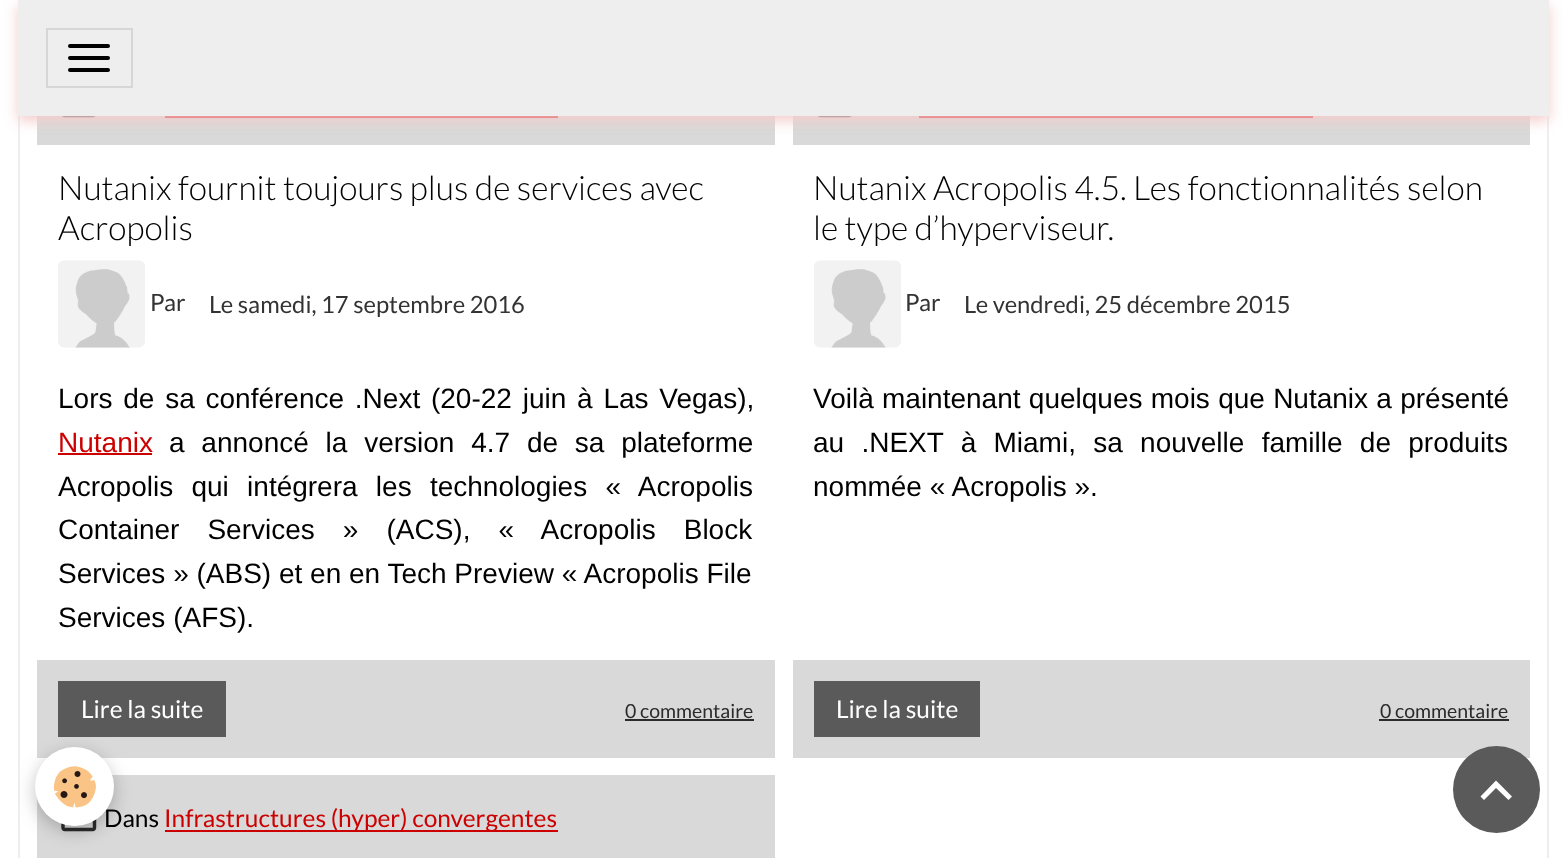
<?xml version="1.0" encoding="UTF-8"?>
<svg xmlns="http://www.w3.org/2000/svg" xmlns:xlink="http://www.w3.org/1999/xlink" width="1566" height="858">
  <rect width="100%" height="100%" fill="#ffffff" />
  <rect x="19" y="-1" width="1529" height="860" fill="none" stroke="#eeeeee" stroke-width="2" />
  <rect x="37" y="116" width="738" height="29" fill="#d9d9d9" />
  <image x="62" y="116" width="34" height="2" xlink:href="image1.png" />
  <rect x="165" y="116" width="393" height="2" fill="#cc0000" />
  <rect x="793" y="116" width="737" height="29" fill="#d9d9d9" />
  <image x="818" y="116" width="34" height="2" xlink:href="image1.png" />
  <rect x="919" y="116" width="394" height="2" fill="#cc0000" />
  <rect x="18" y="5" width="1531" height="116" fill="#f4cccc" filter="blur(7px)" />
  <rect x="18" width="1531" height="116" fill="#eeeeee" />
  <rect x="47" y="29" width="85" height="58" fill="none" stroke="#d6d6d6" stroke-width="2" />
  <rect x="68" y="44" width="42" height="4" rx="2" fill="#000000" />
  <rect x="68" y="56" width="42" height="4" rx="2" fill="#000000" />
  <rect x="68" y="68" width="42" height="4" rx="2" fill="#000000" />
  <image x="58" y="260" width="87" height="88" xlink:href="image2.png" />
  <rect x="58" y="453" width="94" height="2" fill="#cc0000" />
  <rect x="37" y="660" width="738" height="98" fill="#d9d9d9" />
  <rect x="58" y="681" width="168" height="56" fill="#5a5a5a" />
  <rect x="625" y="719" width="129" height="2" fill="#2b2b2b" />
  <image x="814" y="260" width="87" height="88" xlink:href="image2.png" />
  <rect x="793" y="660" width="737" height="98" fill="#d9d9d9" />
  <rect x="814" y="681" width="166" height="56" fill="#5a5a5a" />
  <rect x="1379" y="719" width="130" height="2" fill="#2b2b2b" />
  <rect x="37" y="775" width="738" height="83" fill="#d9d9d9" />
  <image x="61" y="819" width="36" height="13" xlink:href="image3.png" />
  <rect x="165" y="830" width="393" height="2" fill="#cc0000" />
  <rect x="35" y="753" width="79" height="78" rx="39" fill="#000000" fill-opacity="0.24" filter="blur(9px)" />
  <circle cx="1496.5" cy="789.5" r="43.5" fill="#5a5a5a" />
  <path d="M 1496 780.5 l 16 16 l -3.5 3.5 l -12.5 -12 l -12 12 l -3.5 -3.5 z" fill="#ffffff" />
  <text x="58" y="200" style="font-family: Lato; font-size: 33.6px; font-weight: 300; fill: #000000">Nutanix fournit toujours plus de services avec</text>
  <text x="58" y="240" style="font-family: Lato; font-size: 33.6px; font-weight: 300; fill: #000000">Acropolis</text>
  <text x="150" y="311" style="font-family: Lato; font-size: 23.75px; fill: #333333">Par</text>
  <text x="209" y="313" style="font-family: Lato; font-size: 23.75px; fill: #333333">Le samedi, 17 septembre 2016</text>
  <text x="58" y="408" word-spacing="3" style="font-family: Liberation Sans; font-size: 28px; fill: #000000">Lors de sa conférence .Next (20-22 juin à Las Vegas),</text>
  <text x="58" y="452" style="font-family: Liberation Sans; font-size: 28px; fill: #cc0000">Nutanix</text>
  <text x="169" y="452" word-spacing="9" style="font-family: Liberation Sans; font-size: 28px; fill: #000000">a annoncé la version 4.7 de sa plateforme</text>
  <text x="58" y="496" word-spacing="10.5" style="font-family: Liberation Sans; font-size: 28px; fill: #000000">Acropolis qui intégrera les technologies « Acropolis</text>
  <text x="58" y="539" word-spacing="20.25" style="font-family: Liberation Sans; font-size: 28px; fill: #000000">Container Services » (ACS), « Acropolis Block</text>
  <text x="58" y="583" style="font-family: Liberation Sans; font-size: 28px; fill: #000000">Services » (ABS) et en en Tech Preview « Acropolis File</text>
  <text x="58" y="627" style="font-family: Liberation Sans; font-size: 28px; fill: #000000">Services (AFS).</text>
  <text x="81" y="718" style="font-family: Lato; font-size: 24.5px; fill: #ffffff">Lire la suite</text>
  <text x="625" y="718" style="font-family: Lato; font-size: 19.5px; fill: #2b2b2b">0 commentaire</text>
  <text x="813" y="200" style="font-family: Lato; font-size: 33.6px; font-weight: 300; fill: #000000">Nutanix Acropolis 4.5. Les fonctionnalités selon</text>
  <text x="813" y="240" style="font-family: Lato; font-size: 33.6px; font-weight: 300; fill: #000000">le type d’hyperviseur.</text>
  <text x="905" y="311" style="font-family: Lato; font-size: 23.75px; fill: #333333">Par</text>
  <text x="964" y="313" style="font-family: Lato; font-size: 23.75px; fill: #333333">Le vendredi, 25 décembre 2015</text>
  <text x="813" y="408" word-spacing="0.5" style="font-family: Liberation Sans; font-size: 28px; fill: #000000">Voilà maintenant quelques mois que Nutanix a présenté</text>
  <text x="813" y="452" word-spacing="9.5" style="font-family: Liberation Sans; font-size: 28px; fill: #000000">au .NEXT à Miami, sa nouvelle famille de produits</text>
  <text x="813" y="496" style="font-family: Liberation Sans; font-size: 28px; fill: #000000">nommée « Acropolis ».</text>
  <text x="836" y="718" style="font-family: Lato; font-size: 24.5px; fill: #ffffff">Lire la suite</text>
  <text x="1380" y="718" style="font-family: Lato; font-size: 19.5px; fill: #2b2b2b">0 commentaire</text>
  <text x="104" y="827" style="font-family: Lato; font-size: 24.5px; fill: #000000">Dans</text>
  <text x="164" y="827" style="font-family: Lato; font-size: 24.5px; fill: #cc0000">Infrastructures (hyper) convergentes</text>
  <circle cx="74.5" cy="786.5" r="39.5" fill="#ffffff" />
  <image x="53" y="766" width="43" height="42" xlink:href="image4.png" />
</svg>
